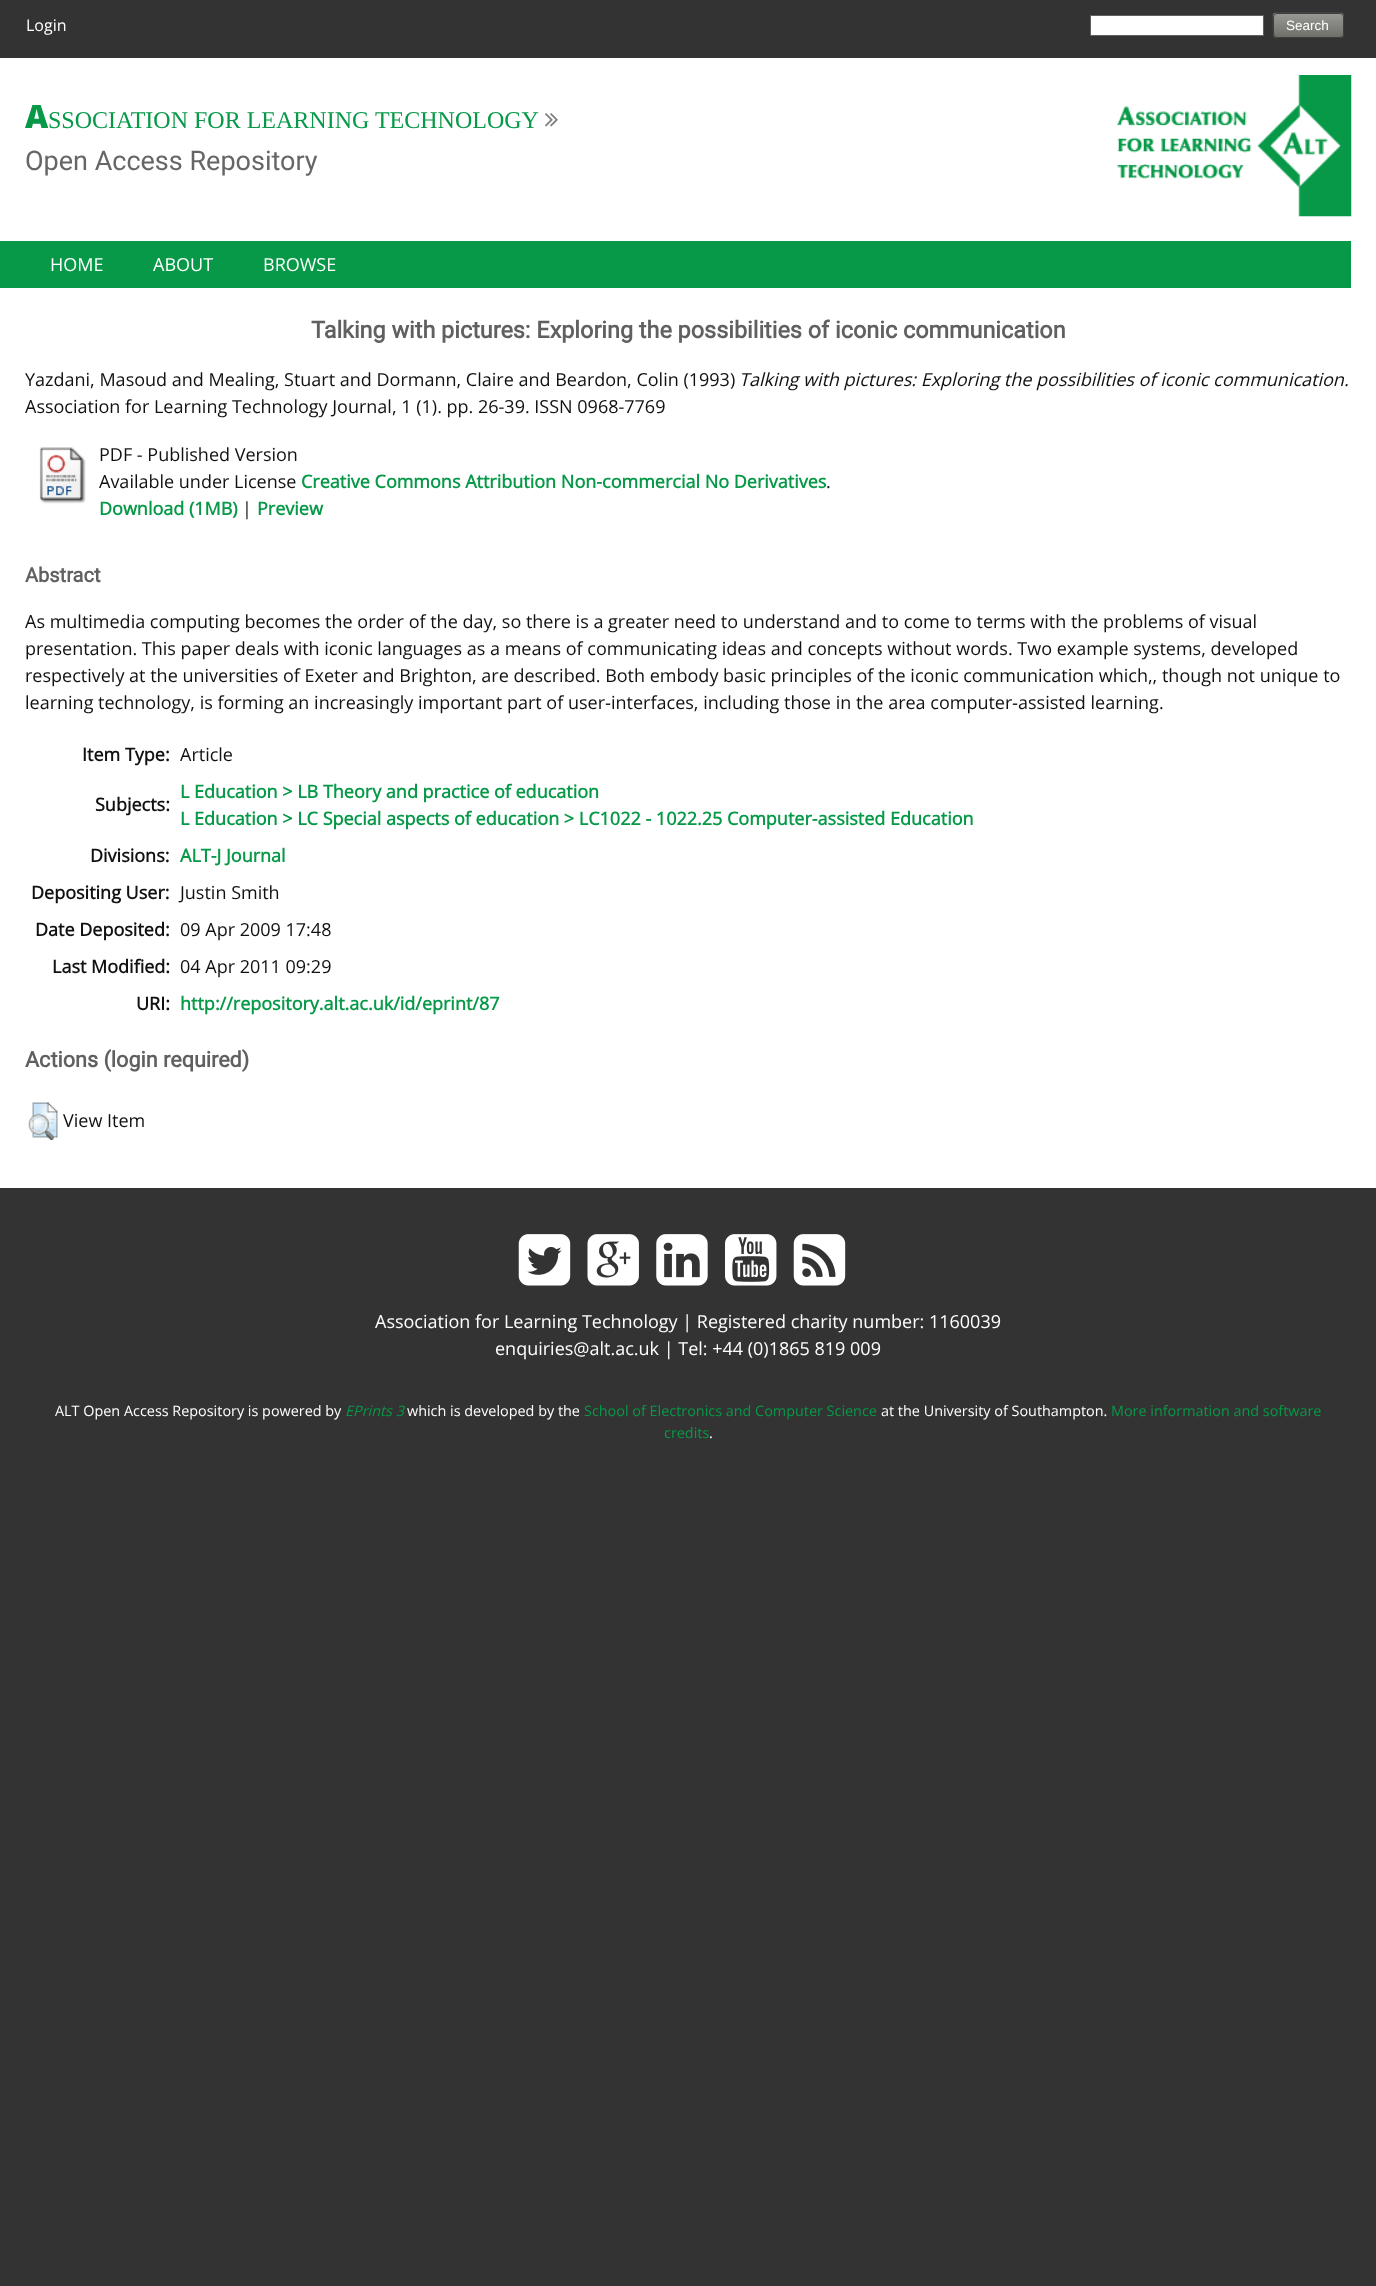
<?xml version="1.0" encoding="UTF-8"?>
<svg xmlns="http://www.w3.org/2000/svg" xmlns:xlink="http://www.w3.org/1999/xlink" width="1376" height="2286">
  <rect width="100%" height="100%" fill="#333333" />
  <rect y="58" width="1376" height="1130" fill="#ffffff" />
  <rect x="1090.5" y="15.5" width="173" height="20" fill="#ffffff" stroke="#606060" />
  <rect x="1273" y="13" width="71" height="25" rx="4" fill="#70716b" />
  <image x="1272" y="12" width="72" height="23" xlink:href="image1.png" />
  <rect x="1273.5" y="13.5" width="70" height="24" rx="3.5" fill="none" stroke="#3e3e3e" />
  <image x="545" y="113" width="13" height="14" xlink:href="image2.png" />
  <image x="1117" y="75" width="235" height="142" xlink:href="image3.png" />
  <rect y="241" width="1351" height="47" fill="#079948" />
  <image x="39" y="447" width="47" height="57" xlink:href="image4.png" />
  <image x="28" y="1102" width="30" height="38" xlink:href="image5.png" />
  <image x="518" y="1234" width="53" height="52" xlink:href="image6.png" />
  <image x="587" y="1234" width="52" height="52" xlink:href="image7.png" />
  <image x="656" y="1234" width="52" height="52" xlink:href="image8.png" />
  <image x="725" y="1234" width="52" height="52" xlink:href="image9.png" />
  <image x="793" y="1234" width="53" height="52" xlink:href="image10.png" />
  <text x="26" y="31" style="font-family: Open Sans; font-size: 16px; fill: #ffffff">Login</text>
  <text x="1286" y="30" style="font-family: Liberation Sans; font-size: 13.5px; fill: #ffffff">Search</text>
  <text x="25" y="128" style="font-family: Noto Sans; font-size: 32px; font-weight: 900; fill: #079948">A</text>
  <text x="48" y="128" style="font-family: Liberation Serif; font-size: 24px; fill: #079948">SSOCIATION FOR LEARNING TECHNOLOGY</text>
  <text x="25" y="170" style="font-family: Roboto; font-size: 27px; fill: #666666">Open Access Repository</text>
  <text x="50" y="271" style="font-family: Open Sans; font-size: 18px; fill: #ffffff">HOME</text>
  <text x="153" y="271" style="font-family: Open Sans; font-size: 18px; fill: #ffffff">ABOUT</text>
  <text x="263" y="271" style="font-family: Open Sans; font-size: 18px; fill: #ffffff">BROWSE</text>
  <text x="311" y="338" style="font-family: Roboto; font-size: 23.4px; font-weight: bold; fill: #606060">Talking with pictures: Exploring the possibilities of iconic communication</text>
  <text x="25" y="386" style="font-family: Open Sans; font-size: 18px; fill: #111111">Yazdani, Masoud and Mealing, Stuart and Dormann, Claire and Beardon, Colin (1993)</text>
  <text x="739" y="386" style="font-family: Open Sans; font-size: 18px; font-style: italic; fill: #111111">Talking with pictures: Exploring the possibilities of iconic communication.</text>
  <text x="25" y="413" style="font-family: Open Sans; font-size: 18px; fill: #111111">Association for Learning Technology Journal, 1 (1). pp. 26-39. ISSN 0968-7769</text>
  <text x="99" y="461" style="font-family: Open Sans; font-size: 18px; fill: #111111">PDF - Published Version</text>
  <text x="99" y="488" style="font-family: Open Sans; font-size: 18px; fill: #111111">Available under License</text>
  <text x="301" y="488" style="font-family: Open Sans; font-size: 18px; font-weight: bold; fill: #079948">Creative Commons Attribution Non-commercial No Derivatives</text>
  <text x="826" y="488" style="font-family: Open Sans; font-size: 18px; fill: #111111">.</text>
  <text x="99" y="515" style="font-family: Open Sans; font-size: 18px; font-weight: bold; fill: #079948">Download (1MB)</text>
  <text x="242" y="515" style="font-family: Open Sans; font-size: 18px; fill: #111111">|</text>
  <text x="257" y="515" style="font-family: Open Sans; font-size: 18px; font-weight: bold; fill: #079948">Preview</text>
  <text x="25" y="582" style="font-family: Roboto; font-size: 20px; font-weight: bold; fill: #606060">Abstract</text>
  <text x="25" y="628" style="font-family: Open Sans; font-size: 18px; fill: #111111">As multimedia computing becomes the order of the day, so there is a greater need to understand and to come to terms with the problems of visual</text>
  <text x="25" y="655" style="font-family: Open Sans; font-size: 18px; fill: #111111">presentation. This paper deals with iconic languages as a means of communicating ideas and concepts without words. Two example systems, developed</text>
  <text x="25" y="682" style="font-family: Open Sans; font-size: 18px; fill: #111111">respectively at the universities of Exeter and Brighton, are described. Both embody basic principles of the iconic communication which,, though not unique to</text>
  <text x="25" y="709" style="font-family: Open Sans; font-size: 18px; fill: #111111">learning technology, is forming an increasingly important part of user</text>
  <text x="605" y="709" style="font-family: Liberation Sans; font-size: 18px; fill: #111111">‐</text>
  <text x="611" y="709" style="font-family: Open Sans; font-size: 18px; fill: #111111">interfaces, including those in the area computer</text>
  <text x="1012" y="709" style="font-family: Liberation Sans; font-size: 18px; fill: #111111">‐</text>
  <text x="1018" y="709" style="font-family: Open Sans; font-size: 18px; fill: #111111">assisted learning.</text>
  <text x="82" y="761" style="font-family: Open Sans; font-size: 18px; font-weight: bold; fill: #111111">Item Type:</text>
  <text x="180" y="761" style="font-family: Open Sans; font-size: 18px; fill: #111111">Article</text>
  <text x="95" y="811" style="font-family: Open Sans; font-size: 18px; font-weight: bold; fill: #111111">Subjects:</text>
  <text x="180" y="798" style="font-family: Open Sans; font-size: 18px; font-weight: bold; fill: #079948">L Education &gt; LB Theory and practice of education</text>
  <text x="180" y="825" style="font-family: Open Sans; font-size: 18px; font-weight: bold; fill: #079948">L Education &gt; LC Special aspects of education &gt; LC1022 - 1022.25 Computer-assisted Education</text>
  <text x="90" y="862" style="font-family: Open Sans; font-size: 18px; font-weight: bold; fill: #111111">Divisions:</text>
  <text x="180" y="862" style="font-family: Open Sans; font-size: 18px; font-weight: bold; fill: #079948">ALT-J Journal</text>
  <text x="31" y="899" style="font-family: Open Sans; font-size: 18px; font-weight: bold; fill: #111111">Depositing User:</text>
  <text x="180" y="899" style="font-family: Open Sans; font-size: 18px; fill: #111111">Justin Smith</text>
  <text x="35" y="936" style="font-family: Open Sans; font-size: 18px; font-weight: bold; fill: #111111">Date Deposited:</text>
  <text x="180" y="936" style="font-family: Open Sans; font-size: 18px; fill: #111111">09 Apr 2009 17:48</text>
  <text x="52" y="973" style="font-family: Open Sans; font-size: 18px; font-weight: bold; fill: #111111">Last Modified:</text>
  <text x="180" y="973" style="font-family: Open Sans; font-size: 18px; fill: #111111">04 Apr 2011 09:29</text>
  <text x="136" y="1010" style="font-family: Open Sans; font-size: 18px; font-weight: bold; fill: #111111">URI:</text>
  <text x="180" y="1010" style="font-family: Open Sans; font-size: 18px; font-weight: bold; fill: #079948">http://repository.alt.ac.uk/id/eprint/87</text>
  <text x="25" y="1067" style="font-family: Roboto; font-size: 21.6px; font-weight: bold; fill: #606060">Actions (login required)</text>
  <text x="63" y="1127" style="font-family: Open Sans; font-size: 18px; fill: #111111">View Item</text>
  <text x="375" y="1328" style="font-family: Open Sans; font-size: 18px; fill: #ffffff">Association for Learning Technology | Registered charity number: 1160039</text>
  <text x="495" y="1355" style="font-family: Open Sans; font-size: 18px; fill: #ffffff">enquiries@alt.ac.uk | Tel: +44 (0)1865 819 009</text>
  <text x="55" y="1416" style="font-family: Open Sans; font-size: 14.4px; fill: #ffffff">ALT Open Access Repository is powered by</text>
  <text x="345" y="1416" style="font-family: Open Sans; font-size: 14.4px; font-style: italic; fill: #079948">EPrints 3</text>
  <text x="407" y="1416" style="font-family: Open Sans; font-size: 14.4px; fill: #ffffff">which is developed by the</text>
  <text x="584" y="1416" style="font-family: Open Sans; font-size: 14.4px; fill: #079948">School of Electronics and Computer Science</text>
  <text x="881" y="1416" style="font-family: Open Sans; font-size: 14.4px; fill: #ffffff">at the University of Southampton.</text>
  <text x="1111" y="1416" style="font-family: Open Sans; font-size: 14.4px; fill: #079948">More information and software</text>
  <text x="664" y="1438" style="font-family: Open Sans; font-size: 14.4px; fill: #079948">credits</text>
  <text x="709" y="1438" style="font-family: Open Sans; font-size: 14.4px; fill: #ffffff">.</text>
</svg>
